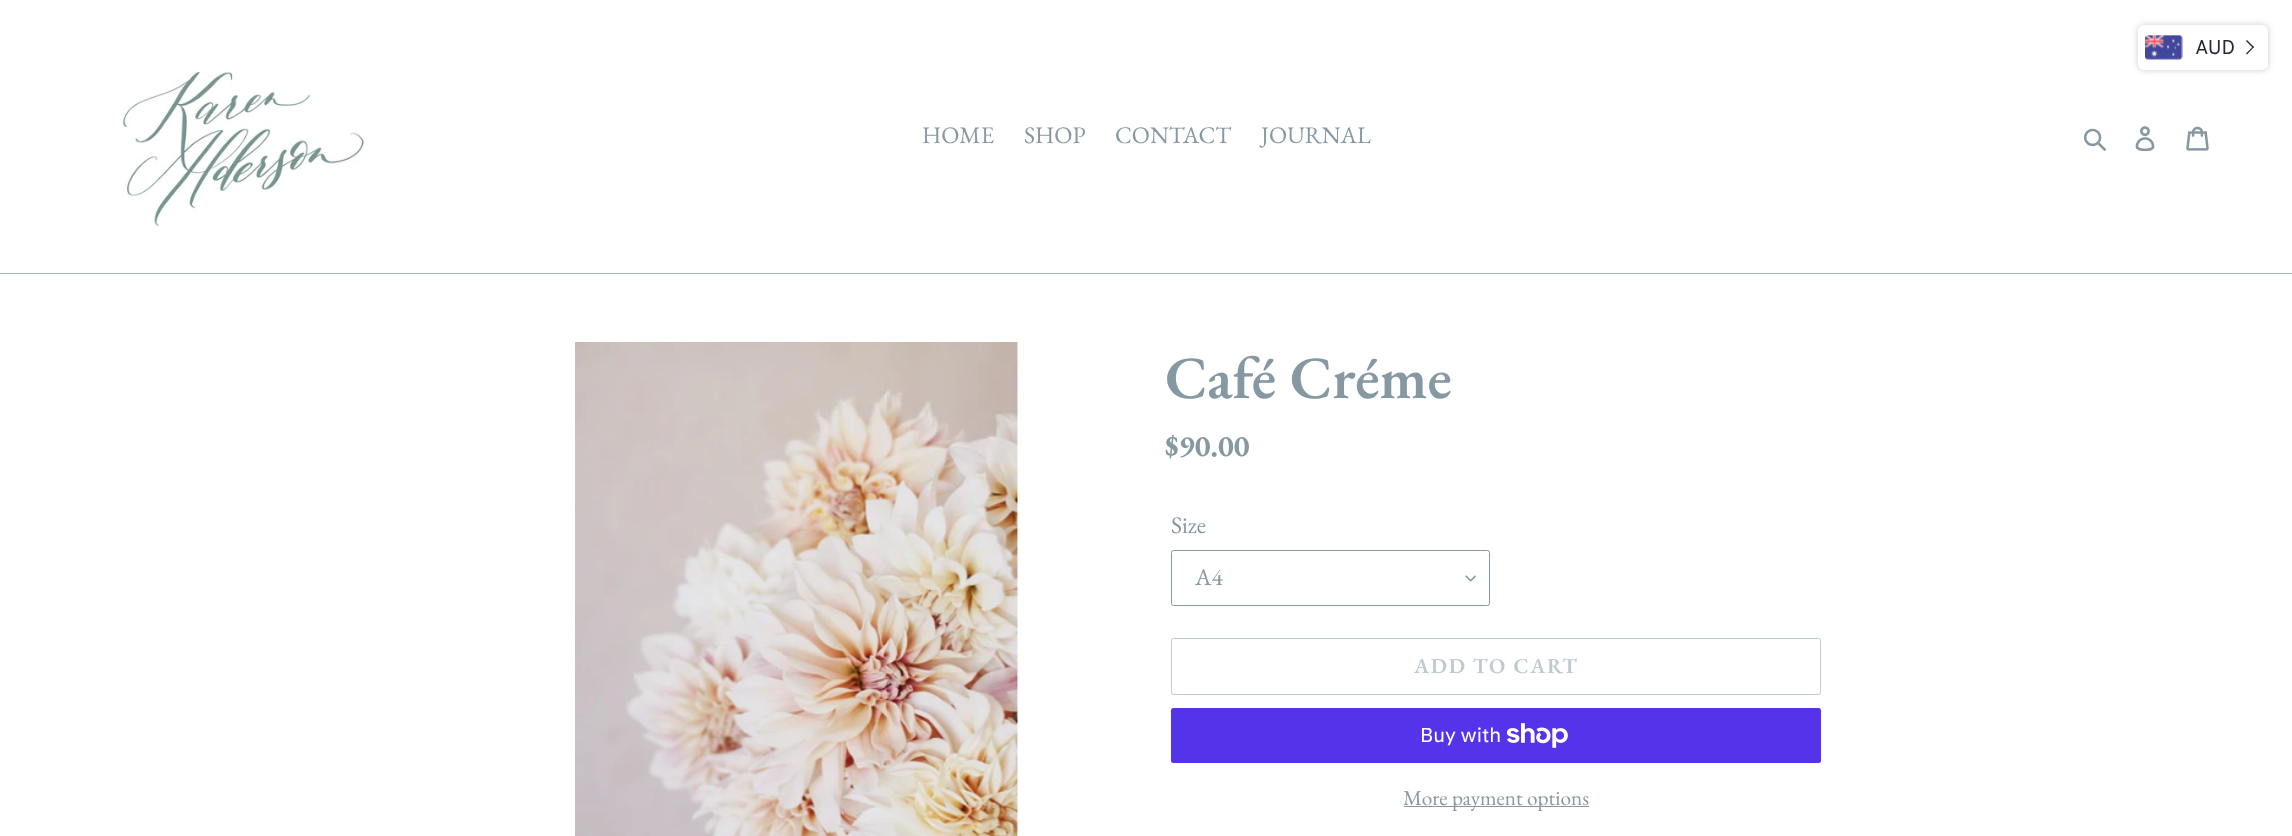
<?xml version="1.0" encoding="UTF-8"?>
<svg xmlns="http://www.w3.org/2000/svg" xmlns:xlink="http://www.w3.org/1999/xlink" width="2292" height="836">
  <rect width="100%" height="100%" fill="#ffffff" />
  <rect x="2138" y="25" width="130" height="45" rx="6" fill="#212b36" fill-opacity="0.25" filter="blur(3px)" />
  <rect x="2138" y="25" width="130" height="45" rx="6" fill="#ffffff" />
  <image x="2145" y="35" width="38" height="25" xlink:href="image1.png" />
  <path d="M 2246 41 l 1 -1 l 7 7 l -1 1 z" fill="#212b36" />
  <path d="M 2246 53.5 l 7 -7 l 1 0.5 l -7 7.5 z" fill="#212b36" />
  <rect y="273" width="2292" height="1" fill="#acb6bb" />
  <image x="122" y="71" width="242" height="156" xlink:href="image2.png" />
  <image x="2083" y="128" width="23" height="23" xlink:href="image3.png" />
  <image x="2135" y="126" width="20" height="25" xlink:href="image4.png" />
  <image x="2186" y="126" width="23" height="25" xlink:href="image5.png" />
  <image x="575" y="342" width="443" height="494" xlink:href="image6.png" />
  <image x="1465" y="575" width="11" height="7" xlink:href="image7.png" />
  <rect x="1171.5" y="550.5" width="318" height="55" rx="2" fill="none" stroke="#8698a1" />
  <rect x="1171.5" y="638.5" width="649" height="56" rx="2" fill="none" stroke="#bfcacf" />
  <rect x="1171" y="708" width="650" height="55" rx="2.5" fill="#5433eb" />
  <image x="1506" y="723" width="62" height="25" xlink:href="image8.png" />
  <rect x="1404" y="806" width="185" height="1" fill="#8698a1" />
  <text x="2195" y="54" style="font-family: Overpass; font-size: 20px; fill: #212b36">AUD</text>
  <text x="922" y="143" style="font-family: EB Garamond; font-size: 23.75px; fill: #8698a1">HOME</text>
  <text x="1024" y="143" style="font-family: EB Garamond; font-size: 23.75px; fill: #8698a1">SHOP</text>
  <text x="1115" y="143" style="font-family: EB Garamond; font-size: 23.75px; fill: #8698a1">CONTACT</text>
  <text x="1261" y="143" style="font-family: EB Garamond; font-size: 23.75px; fill: #8698a1">JOURNAL</text>
  <text x="1165" y="398" style="font-family: EB Garamond; font-size: 60px; font-weight: 600; fill: #8698a1">Café Créme</text>
  <text x="1165" y="456" style="font-family: EB Garamond; font-size: 30px; font-weight: bold; fill: #8698a1">$90.00</text>
  <text x="1171" y="533" style="font-family: EB Garamond; font-size: 23.75px; fill: #8698a1">Size</text>
  <text x="1195" y="585" style="font-family: EB Garamond; font-size: 23.75px; fill: #8698a1">A4</text>
  <text x="1414" y="673" style="font-family: EB Garamond; font-size: 21.25px; font-weight: 600; letter-spacing: 1.75px; fill: #bfcacf">ADD TO CART</text>
  <text x="1420" y="742" style="font-family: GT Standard; font-size: 20px; fill: #ffffff">Buy with</text>
  <text x="1403" y="805" style="font-family: EB Garamond; font-size: 21.25px; fill: #8698a1">More payment options</text>
</svg>
